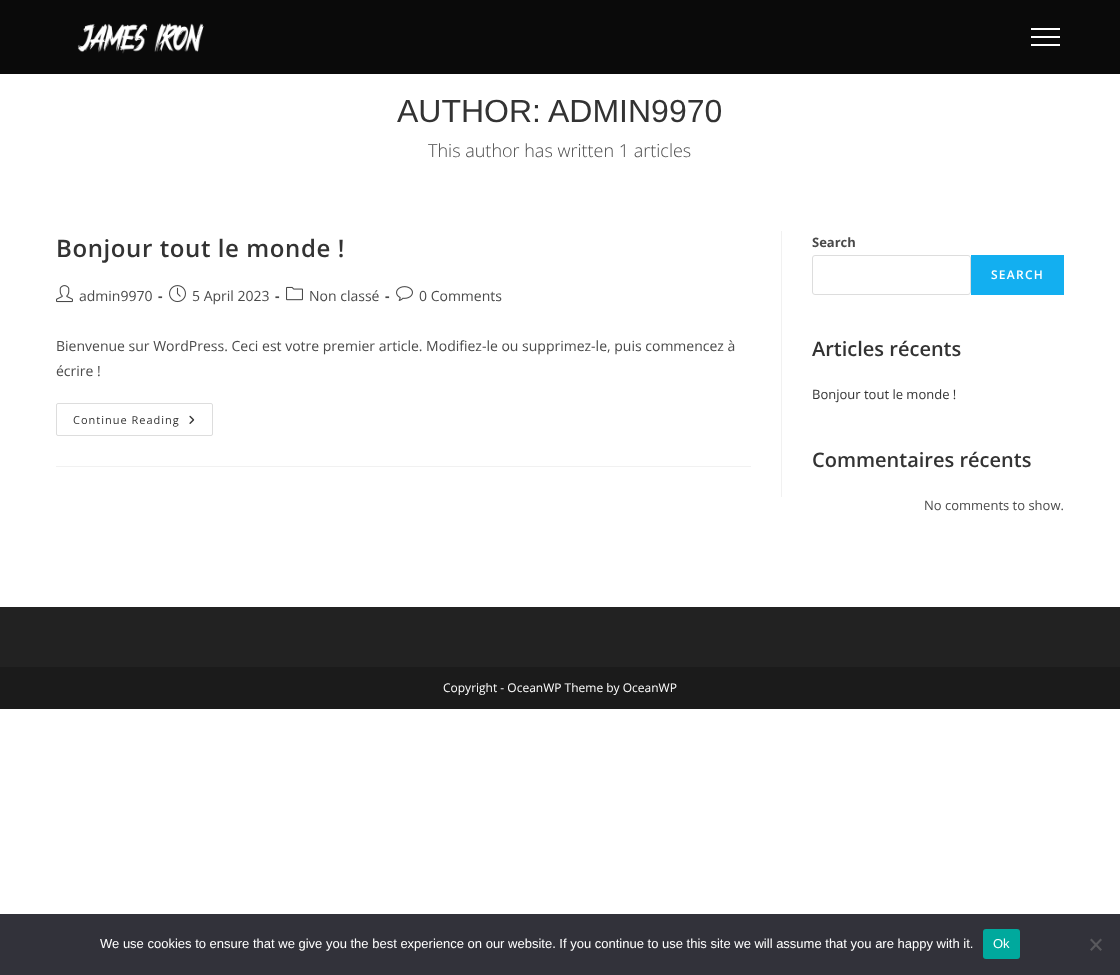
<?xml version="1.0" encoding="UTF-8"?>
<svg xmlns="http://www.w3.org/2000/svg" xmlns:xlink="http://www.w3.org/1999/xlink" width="1120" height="975">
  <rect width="100%" height="100%" fill="#ffffff" />
  <rect width="1120" height="74" fill="#0a0a0a" />
  <image x="77" y="23" width="127" height="31" xlink:href="image1.png" />
  <rect x="1031" y="36" width="29" height="2" fill="#ffffff" />
  <rect x="1031" y="28" width="29" height="2" fill="#ffffff" />
  <rect x="1031" y="44" width="29" height="2" fill="#ffffff" />
  <rect x="781" y="231" width="1" height="266" fill="#f1f1f1" />
  <rect x="56" y="466" width="695" height="1" fill="#f1f1f1" />
  <image x="56" y="285" width="17" height="18" xlink:href="image2.png" />
  <image x="169" y="285" width="17" height="18" xlink:href="image3.png" />
  <image x="286" y="286" width="17" height="15" xlink:href="image4.png" />
  <image x="396" y="286" width="17" height="15" xlink:href="image5.png" />
  <rect x="56.5" y="403.5" width="156" height="32" rx="1.5" fill="none" stroke="#dddddd" />
  <image x="189" y="415" width="6" height="9" xlink:href="image6.png" />
  <rect x="812.5" y="255.5" width="158" height="39" rx="2.5" fill="none" stroke="#dddddd" />
  <rect x="971" y="255" width="93" height="40" fill="#13aff0" />
  <rect y="607" width="1120" height="60" fill="#222222" />
  <rect y="667" width="1120" height="42" fill="#1b1b1b" />
  <rect y="914" width="1120" height="61" fill="#32323a" />
  <rect x="983" y="929" width="37" height="30" rx="3" fill="#00a99d" />
  <path d="M 1100.5 938.5 l 1.5 1.5 l -10.5 11 l -1.5 -1.5 z" fill="#59595d" />
  <path d="M 1090 940 l 1.5 -1.5 l 10.5 11 l -1.5 1.5 z" fill="#59595d" />
  <text x="397" y="122" style="font-family: Liberation Sans; font-size: 32px; fill: #333333">AUTHOR:</text>
  <text x="548" y="122" style="font-family: Liberation Sans; font-size: 32px; fill: #333333">ADMIN9970</text>
  <text x="428" y="157" style="font-family: Open Sans; font-size: 18px; font-weight: 300; fill: #4a4a4a">This author has written 1 articles</text>
  <text x="56" y="257" style="font-family: Open Sans; font-size: 24px; font-weight: 600; letter-spacing: 0.6px; fill: #333333">Bonjour tout le monde !</text>
  <text x="79" y="301" style="font-family: Open Sans; font-size: 14px; fill: #4a4a4a">admin9970</text>
  <text x="158" y="301" style="font-family: Open Sans; font-size: 14px; font-weight: bold; fill: #4a4a4a">-</text>
  <text x="192" y="301" style="font-family: Open Sans; font-size: 14px; fill: #4a4a4a">5 April 2023</text>
  <text x="275" y="301" style="font-family: Open Sans; font-size: 14px; font-weight: bold; fill: #4a4a4a">-</text>
  <text x="309" y="301" style="font-family: Open Sans; font-size: 14px; fill: #4a4a4a">Non classé</text>
  <text x="385" y="301" style="font-family: Open Sans; font-size: 14px; font-weight: bold; fill: #4a4a4a">-</text>
  <text x="419" y="301" style="font-family: Open Sans; font-size: 14px; fill: #4a4a4a">0 Comments</text>
  <text x="56" y="351" style="font-family: Open Sans; font-size: 14px; fill: #4a4a4a">Bienvenue sur WordPress. Ceci est votre premier article. Modifiez-le ou supprimez-le, puis commencez à</text>
  <text x="56" y="376" style="font-family: Open Sans; font-size: 14px; fill: #4a4a4a">écrire !</text>
  <text x="73" y="424" style="font-family: Open Sans; font-size: 11px; letter-spacing: 1px; fill: #333333">Continue Reading</text>
  <text x="812" y="247" style="font-family: Open Sans; font-size: 13px; font-weight: bold; fill: #4a4a4a">Search</text>
  <text x="991" y="279" style="font-family: Open Sans; font-size: 12px; font-weight: 600; letter-spacing: 1.25px; fill: #ffffff">SEARCH</text>
  <text x="812" y="356" style="font-family: Open Sans; font-size: 20px; font-weight: 600; fill: #333333">Articles récents</text>
  <text x="812" y="399" style="font-family: Open Sans; font-size: 13px; fill: #333333">Bonjour tout le monde !</text>
  <text x="812" y="467" style="font-family: Open Sans; font-size: 20px; font-weight: 600; fill: #333333">Commentaires récents</text>
  <text x="924" y="510" style="font-family: Open Sans; font-size: 13px; fill: #4a4a4a">No comments to show.</text>
  <text x="443" y="692" style="font-family: Open Sans; font-size: 12px; fill: #ffffff">Copyright - OceanWP Theme by OceanWP</text>
  <text x="100" y="948" style="font-family: Liberation Sans; font-size: 13px; fill: #ffffff">We use cookies to ensure that we give you the best experience on our website. If you continue to use this site we will assume that you are happy with it.</text>
  <text x="993" y="948" style="font-family: Liberation Sans; font-size: 13px; fill: #ffffff">Ok</text>
</svg>
